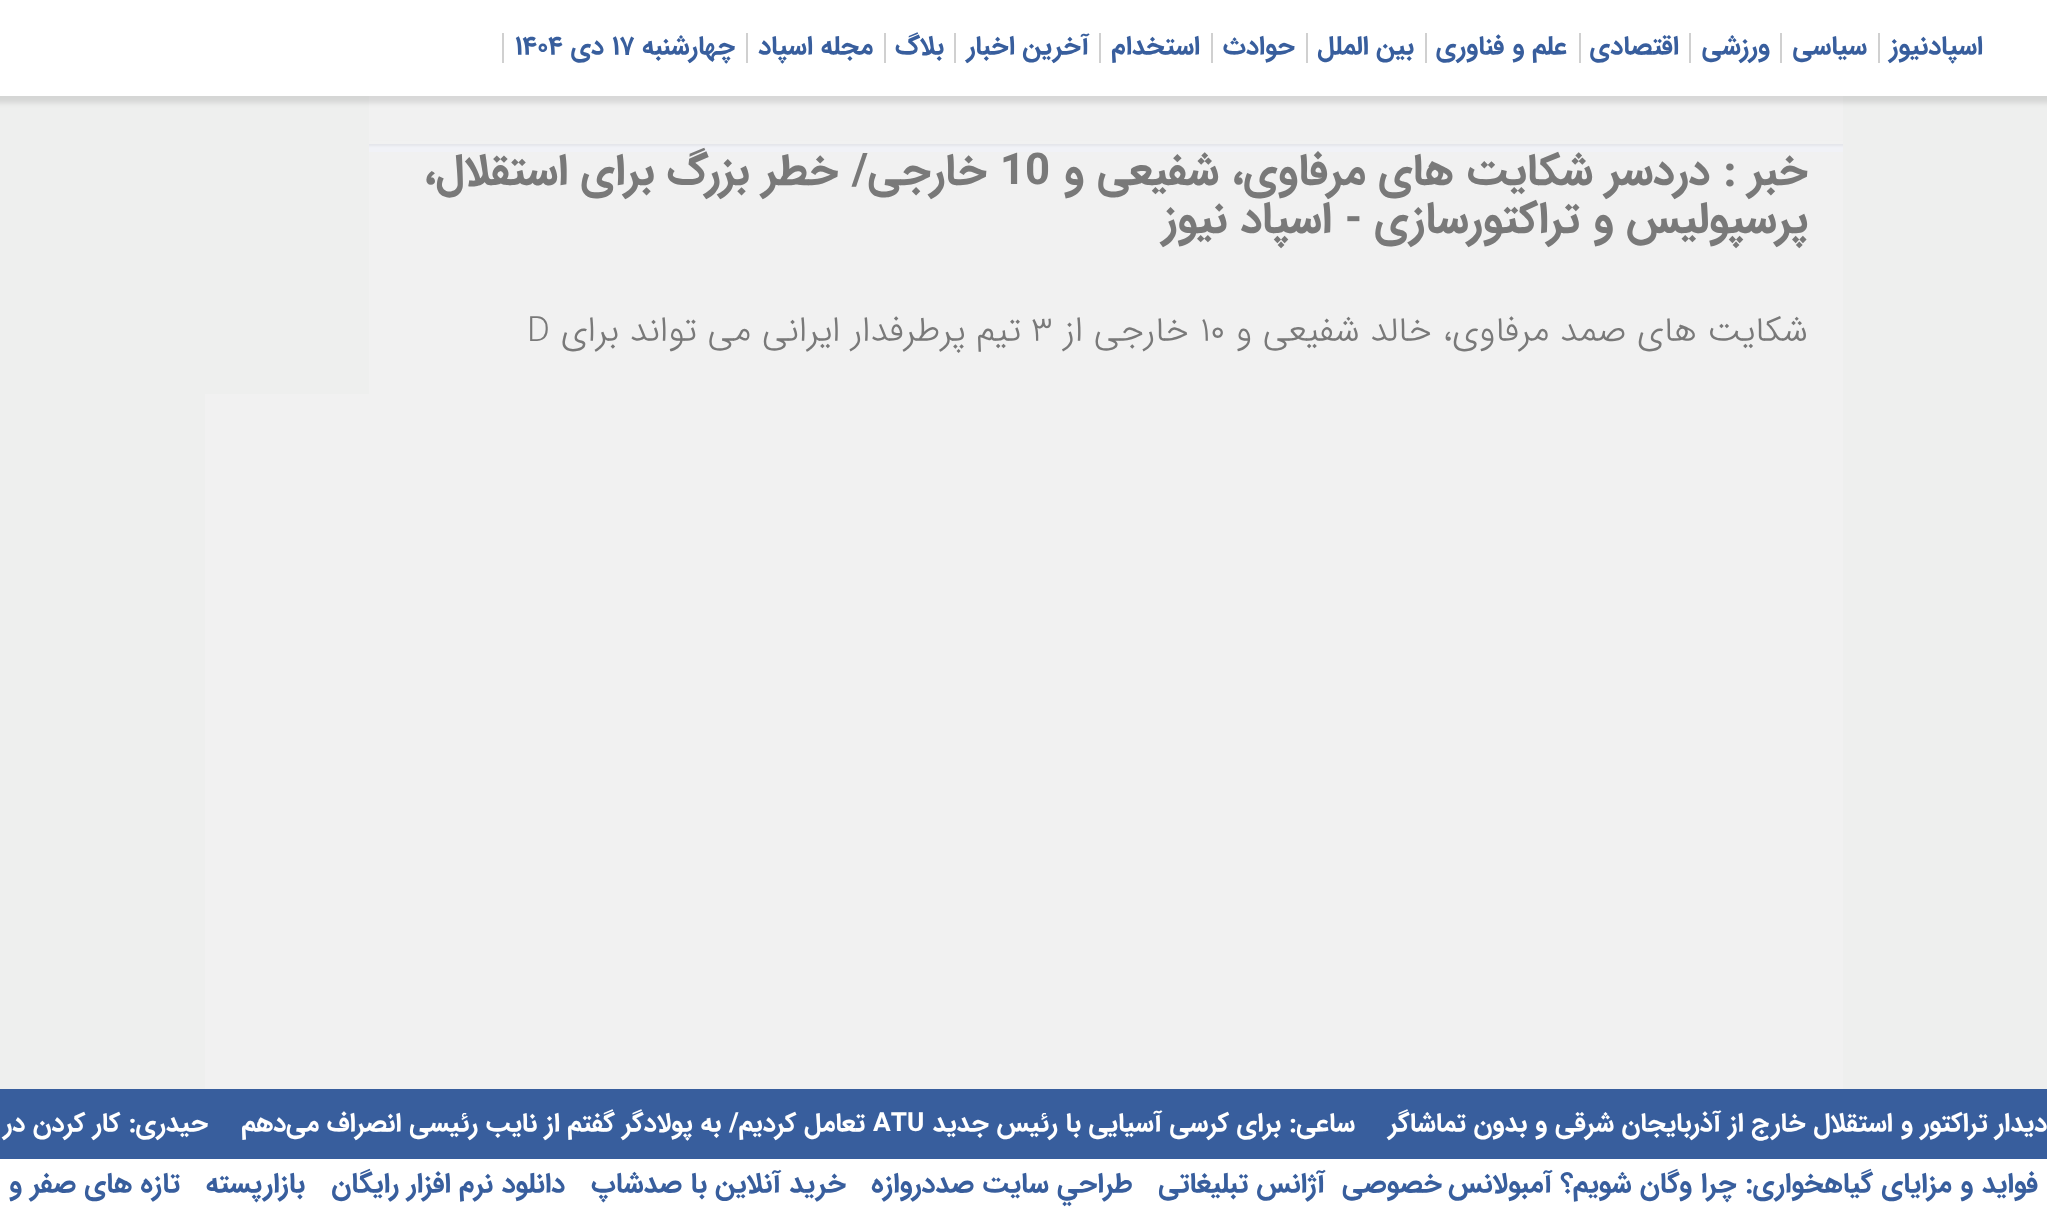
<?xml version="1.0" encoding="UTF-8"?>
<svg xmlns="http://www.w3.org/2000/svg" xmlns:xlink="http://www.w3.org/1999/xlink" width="2047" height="1211">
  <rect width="100%" height="100%" fill="#f1f1f1" />
  <rect x="369" y="144" width="1474" height="8" fill="#f1f2f7" />
  <rect y="142" width="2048" height="4" rx="2" fill="#000000" fill-opacity="0.05" filter="blur(1px)" />
  <rect x="1843" y="96" width="204" height="993" fill="#eeefee" />
  <rect x="205" y="96" width="164" height="298" fill="#eeefee" />
  <rect y="96" width="205" height="993" fill="#eeefee" />
  <rect x="-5" y="-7" width="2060" height="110" fill="#000000" fill-opacity="0.1" filter="blur(2.5px)" />
  <rect width="2047" height="96" fill="#ffffff" />
  <rect x="1878" y="33" width="2" height="30" fill="#d0d0d0" />
  <rect x="1780" y="33" width="2" height="30" fill="#d0d0d0" />
  <rect x="1689" y="33" width="2" height="30" fill="#d0d0d0" />
  <rect x="1579" y="33" width="2" height="30" fill="#d0d0d0" />
  <rect x="1425" y="33" width="2" height="30" fill="#d0d0d0" />
  <rect x="1306" y="33" width="2" height="30" fill="#d0d0d0" />
  <rect x="1211" y="33" width="2" height="30" fill="#d0d0d0" />
  <rect x="1099" y="33" width="2" height="30" fill="#d0d0d0" />
  <rect x="954" y="33" width="2" height="30" fill="#d0d0d0" />
  <rect x="884" y="33" width="2" height="30" fill="#d0d0d0" />
  <rect x="746" y="33" width="2" height="30" fill="#d0d0d0" />
  <rect x="502" y="33" width="2" height="30" fill="#d0d0d0" />
  <rect x="369" y="141" width="1474" height="3" fill="#f1f1f1" />
  <rect y="1089" width="2047" height="70" fill="#385e9d" />
  <rect y="1159" width="2047" height="52" fill="#ffffff" />
  <text x="1983" y="54" style="font-family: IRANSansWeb; font-size: 26.25px; font-weight: bold; direction: rtl; fill: #385e9d">اسپادنیوز</text>
  <text x="1867" y="54" style="font-family: IRANSansWeb; font-size: 26.25px; font-weight: bold; direction: rtl; fill: #385e9d">سیاسی</text>
  <text x="1770" y="54" style="font-family: IRANSansWeb; font-size: 26.25px; font-weight: bold; direction: rtl; fill: #385e9d">ورزشی</text>
  <text x="1679" y="54" style="font-family: IRANSansWeb; font-size: 26.25px; font-weight: bold; direction: rtl; fill: #385e9d">اقتصادی</text>
  <text x="1567" y="54" style="font-family: IRANSansWeb; font-size: 26.25px; font-weight: bold; direction: rtl; fill: #385e9d">علم و فناوری</text>
  <text x="1414" y="54" style="font-family: IRANSansWeb; font-size: 26.25px; font-weight: bold; direction: rtl; fill: #385e9d">بین الملل</text>
  <text x="1295" y="54" style="font-family: IRANSansWeb; font-size: 26.25px; font-weight: bold; direction: rtl; fill: #385e9d">حوادث</text>
  <text x="1200" y="54" style="font-family: IRANSansWeb; font-size: 26.25px; font-weight: bold; direction: rtl; fill: #385e9d">استخدام</text>
  <text x="1089" y="54" style="font-family: IRANSansWeb; font-size: 26.25px; font-weight: bold; direction: rtl; fill: #385e9d">آخرین اخبار</text>
  <text x="944" y="54" style="font-family: IRANSansWeb; font-size: 26.25px; font-weight: bold; direction: rtl; fill: #385e9d">بلاگ</text>
  <text x="873" y="54" style="font-family: IRANSansWeb; font-size: 26.25px; font-weight: bold; direction: rtl; fill: #385e9d">مجله اسپاد</text>
  <text x="735" y="54" style="font-family: IRANSansWeb; font-size: 26.25px; font-weight: bold; direction: rtl; fill: #385e9d">چهارشنبه</text>
  <text x="612" y="54" style="font-family: IRANSansWeb; font-size: 26.25px; font-weight: bold; fill: #385e9d">۱۷</text>
  <text x="604" y="54" style="font-family: IRANSansWeb; font-size: 26.25px; font-weight: bold; direction: rtl; fill: #385e9d">دی</text>
  <text x="515" y="54" style="font-family: IRANSansWeb; font-size: 26.25px; font-weight: bold; fill: #385e9d">۱۴۰۴</text>
  <text x="1808" y="184" style="font-family: IRANSansWeb; font-size: 43.75px; font-weight: bold; direction: rtl; fill: #797979">خبر : دردسر شکایت های مرفاوی، شفیعی و</text>
  <text x="1000" y="184" style="font-family: IRANSansWeb; font-size: 43.75px; font-weight: bold; fill: #797979">10</text>
  <text x="987" y="184" style="font-family: IRANSansWeb; font-size: 43.75px; font-weight: bold; direction: rtl; fill: #797979">خارجی/ خطر بزرگ برای استقلال،</text>
  <text x="1808" y="232" style="font-family: IRANSansWeb; font-size: 43.75px; font-weight: bold; direction: rtl; fill: #797979">پرسپولیس و تراکتورسازی - اسپاد نیوز</text>
  <text x="1808" y="341" style="font-family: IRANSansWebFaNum; font-size: 35px; font-weight: 300; direction: rtl; fill: #797979">شکایت های صمد مرفاوی، خالد شفیعی و</text>
  <text x="1200" y="341" style="font-family: IRANSansWebFaNum; font-size: 35px; font-weight: 300; fill: #797979">10</text>
  <text x="1189" y="341" style="font-family: IRANSansWebFaNum; font-size: 35px; font-weight: 300; direction: rtl; fill: #797979">خارجی از</text>
  <text x="1031" y="341" style="font-family: IRANSansWebFaNum; font-size: 35px; font-weight: 300; fill: #797979">3</text>
  <text x="1021" y="341" style="font-family: IRANSansWebFaNum; font-size: 35px; font-weight: 300; direction: rtl; fill: #797979">تیم پرطرفدار ایرانی می تواند برای</text>
  <text x="527" y="341" style="font-family: IRANSansWebFaNum; font-size: 35px; font-weight: 300; fill: #797979">D</text>
  <text x="2047" y="1131" style="font-family: IRANSansWeb; font-size: 26.25px; font-weight: bold; direction: rtl; fill: #ffffff">دیدار تراکتور و استقلال خارج از آذربایجان شرقی و بدون تماشاگر</text>
  <text x="1355" y="1131" style="font-family: IRANSansWeb; font-size: 26.25px; font-weight: bold; direction: rtl; fill: #ffffff">ساعی: برای کرسی آسیایی با رئیس جدید</text>
  <text x="873" y="1131" style="font-family: IRANSansWeb; font-size: 26.25px; font-weight: bold; fill: #ffffff">ATU</text>
  <text x="865" y="1131" style="font-family: IRANSansWeb; font-size: 26.25px; font-weight: bold; direction: rtl; fill: #ffffff">تعامل کردیم/ به پولادگر گفتم از نایب رئیسی انصراف می‌دهم</text>
  <text x="208" y="1131" style="font-family: IRANSansWeb; font-size: 26.25px; font-weight: bold; direction: rtl; fill: #ffffff">حیدری: کار کردن در</text>
  <text x="2038" y="1192" style="font-family: IRANSansWeb; font-size: 28px; font-weight: bold; direction: rtl; fill: #385e9d">فواید و مزایای گیاهخواری: چرا وگان شویم؟</text>
  <text x="1552" y="1192" word-spacing="-2" style="font-family: IRANSansWeb; font-size: 28px; font-weight: bold; direction: rtl; fill: #385e9d">آمبولانس خصوصی</text>
  <text x="1325" y="1192" style="font-family: IRANSansWeb; font-size: 28px; font-weight: bold; direction: rtl; fill: #385e9d">آژانس تبلیغاتی</text>
  <text x="1133" y="1192" style="font-family: IRANSansWeb; font-size: 28px; font-weight: bold; direction: rtl; fill: #385e9d">طراحي سايت صددروازه</text>
  <text x="846" y="1192" style="font-family: IRANSansWeb; font-size: 28px; font-weight: bold; direction: rtl; fill: #385e9d">خريد آنلاين با صدشاپ</text>
  <text x="565" y="1192" style="font-family: IRANSansWeb; font-size: 28px; font-weight: bold; direction: rtl; fill: #385e9d">دانلود نرم افزار رايگان</text>
  <text x="305" y="1192" style="font-family: IRANSansWeb; font-size: 28px; font-weight: bold; direction: rtl; fill: #385e9d">بازارپسته</text>
  <text x="180" y="1192" style="font-family: IRANSansWeb; font-size: 28px; font-weight: bold; direction: rtl; fill: #385e9d">تازه های صفر و</text>
</svg>
